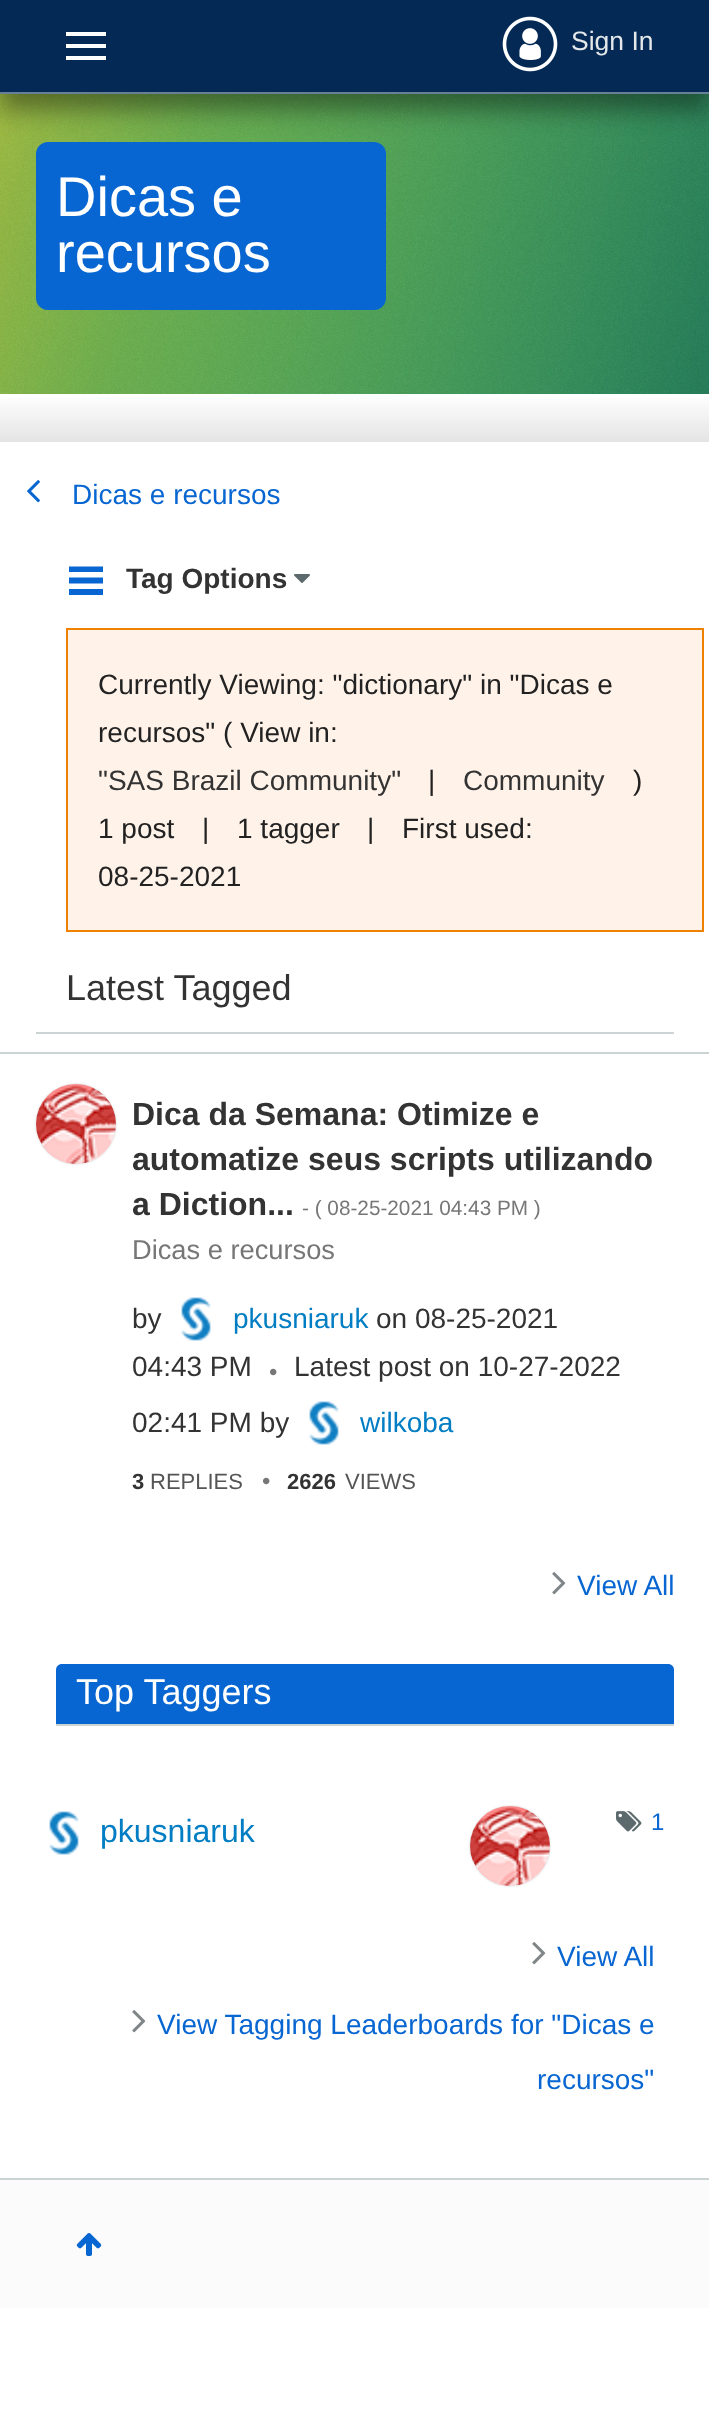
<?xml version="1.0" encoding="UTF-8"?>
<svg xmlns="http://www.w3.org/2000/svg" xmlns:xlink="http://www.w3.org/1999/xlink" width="709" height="2412">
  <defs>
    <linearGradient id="g1" gradientUnits="userSpaceOnUse" x1="355" y1="394" x2="355" y2="442"><stop offset="0" stop-color="#ffffff" /><stop offset="1" stop-color="#e4e4e4" /></linearGradient>
  </defs>
  <rect width="100%" height="100%" fill="#ffffff" />
  <image x="0" y="94" width="709" height="300" xlink:href="image2.png" />
  <rect y="16" width="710" height="94" fill="#000000" fill-opacity="0.4" filter="blur(12px)" />
  <rect width="709" height="92" fill="#032954" />
  <rect y="92" width="709" height="2" fill="#687f98" />
  <rect x="66" y="32" width="40" height="4" fill="#ffffff" />
  <rect x="66" y="44" width="40" height="4" fill="#ffffff" />
  <rect x="66" y="56" width="40" height="4" fill="#ffffff" />
  <image x="502" y="16" width="56" height="56" xlink:href="image1.png" />
  <rect x="36" y="142" width="350" height="168" rx="12" fill="#0766d1" />
  <rect y="398" width="709" height="44" fill="url(#g1)" />
  <image x="27" y="480" width="13" height="23" xlink:href="image3.png" />
  <path d="M 103 572 h -34 v -5.5 h 34 z m 0 11.5 h -34 v -6 h 34 z m 0 11.5 h -34 v -6 h 34 z" fill="#0766d1" />
  <image x="294" y="574" width="16" height="9" xlink:href="image4.png" />
  <rect x="67" y="629" width="636" height="302" fill="#fff2e9" stroke="#f08000" stroke-width="2" />
  <rect x="36" y="1032" width="638" height="2" fill="#cbd3d5" />
  <rect y="1052" width="709" height="2" fill="#cbd3d5" />
  <rect x="36" y="1084" width="80" height="80" rx="40" fill="#cbd3d5" filter="blur(1px)" />
  <image x="36" y="1084" width="80" height="80" xlink:href="image5.png" />
  <image x="181" y="1297" width="30" height="44" xlink:href="image6.png" />
  <image x="309" y="1401" width="30" height="44" xlink:href="image6.png" />
  <image x="552" y="1572" width="14" height="23" xlink:href="image7.png" />
  <path d="M 62 1664 h 606 c 3.5 0 6 2.5 6 6 v 56 h -618 v -56 c 0 -3.5 2.5 -6 6 -6 z" fill="#0766d1" />
  <rect x="56" y="1724" width="618" height="2" fill="#cbd3d5" />
  <image x="49" y="1811" width="30" height="44" xlink:href="image6.png" />
  <rect x="470" y="1806" width="80" height="80" rx="40" fill="#cbd3d5" filter="blur(1px)" />
  <image x="470" y="1806" width="80" height="80" xlink:href="image8.png" />
  <image x="616" y="1811" width="26" height="21" xlink:href="image9.png" />
  <image x="532" y="1942" width="14" height="23" xlink:href="image7.png" />
  <image x="132" y="2010" width="14" height="23" xlink:href="image7.png" />
  <rect y="2180" width="709" height="128" fill="#fbfbfb" />
  <rect y="2178" width="709" height="2" fill="#cbd3d5" />
  <image x="76" y="2233" width="26" height="23" xlink:href="image10.png" />
  <text x="571" y="50" style="font-family: Liberation Sans; font-size: 26.5px; fill: #e4e8ea">Sign In</text>
  <text x="56" y="216" style="font-family: Liberation Sans; font-size: 56px; fill: #ffffff">Dicas e</text>
  <text x="56" y="272" style="font-family: Liberation Sans; font-size: 56px; fill: #ffffff">recursos</text>
  <text x="72" y="504" style="font-family: Liberation Sans; font-size: 28px; fill: #0766d1">Dicas e recursos</text>
  <text x="126" y="588" style="font-family: Liberation Sans; font-size: 28px; font-weight: bold; fill: #333333">Tag Options</text>
  <text x="98" y="694" style="font-family: Liberation Sans; font-size: 28px; fill: #222222">Currently Viewing: "dictionary" in "Dicas e</text>
  <text x="98" y="742" style="font-family: Liberation Sans; font-size: 28px; fill: #222222">recursos" ( View in:</text>
  <text x="98" y="790" style="font-family: Liberation Sans; font-size: 28px; fill: #333333">"SAS Brazil Community"</text>
  <text x="428" y="790" style="font-family: Liberation Sans; font-size: 28px; fill: #222222">|</text>
  <text x="463" y="790" style="font-family: Liberation Sans; font-size: 28px; fill: #333333">Community</text>
  <text x="633" y="790" style="font-family: Liberation Sans; font-size: 28px; fill: #222222">)</text>
  <text x="98" y="838" style="font-family: Liberation Sans; font-size: 28px; fill: #222222">1 post</text>
  <text x="202" y="838" style="font-family: Liberation Sans; font-size: 28px; fill: #222222">|</text>
  <text x="237" y="838" style="font-family: Liberation Sans; font-size: 28px; fill: #222222">1 tagger</text>
  <text x="367" y="838" style="font-family: Liberation Sans; font-size: 28px; fill: #222222">|</text>
  <text x="402" y="838" style="font-family: Liberation Sans; font-size: 28px; fill: #222222">First used:</text>
  <text x="98" y="886" style="font-family: Liberation Sans; font-size: 28px; fill: #222222">08-25-2021</text>
  <text x="66" y="1000" style="font-family: Liberation Sans; font-size: 36px; fill: #333333">Latest Tagged</text>
  <text x="132" y="1125" style="font-family: Liberation Sans; font-size: 32px; font-weight: bold; fill: #333333">Dica da Semana: Otimize e</text>
  <text x="132" y="1170" style="font-family: Liberation Sans; font-size: 32px; font-weight: bold; fill: #333333">automatize seus scripts utilizando</text>
  <text x="132" y="1215" style="font-family: Liberation Sans; font-size: 32px; font-weight: bold; fill: #333333">a Diction...</text>
  <text x="302" y="1215" style="font-family: Liberation Sans; font-size: 20.75px; fill: #777777">- ( 08-25-2021 04:43 PM )</text>
  <text x="132" y="1259" style="font-family: Liberation Sans; font-size: 27.25px; fill: #777777">Dicas e recursos</text>
  <text x="132" y="1328" style="font-family: Liberation Sans; font-size: 28px; fill: #333333">by</text>
  <text x="233" y="1328" style="font-family: Liberation Sans; font-size: 28px; fill: #007dc3">pkusniaruk</text>
  <text x="376" y="1328" style="font-family: Liberation Sans; font-size: 28px; fill: #333333">on 08-25-2021</text>
  <text x="132" y="1376" style="font-family: Liberation Sans; font-size: 28px; fill: #333333">04:43 PM</text>
  <text x="269" y="1380" style="font-family: Liberation Sans; font-size: 24px; fill: #777777">•</text>
  <text x="294" y="1376" style="font-family: Liberation Sans; font-size: 28px; fill: #333333">Latest post on 10-27-2022</text>
  <text x="132" y="1432" style="font-family: Liberation Sans; font-size: 28px; fill: #333333">02:41 PM by</text>
  <text x="360" y="1432" style="font-family: Liberation Sans; font-size: 28px; fill: #007dc3">wilkoba</text>
  <text x="132" y="1489" style="font-family: Liberation Sans; font-size: 22px; font-weight: bold; fill: #333333">3</text>
  <text x="150" y="1489" style="font-family: Liberation Sans; font-size: 22px; fill: #555555">REPLIES</text>
  <text x="262" y="1489" style="font-family: Liberation Sans; font-size: 24px; fill: #777777">•</text>
  <text x="287" y="1489" style="font-family: Liberation Sans; font-size: 22px; font-weight: bold; fill: #333333">2626</text>
  <text x="345" y="1489" style="font-family: Liberation Sans; font-size: 22px; fill: #555555">VIEWS</text>
  <text x="577" y="1595" style="font-family: Liberation Sans; font-size: 28px; fill: #0766d1">View All</text>
  <text x="76" y="1704" style="font-family: Liberation Sans; font-size: 36px; fill: #ffffff">Top Taggers</text>
  <text x="100" y="1842" style="font-family: Liberation Sans; font-size: 32px; fill: #007dc3">pkusniaruk</text>
  <text x="651" y="1830" style="font-family: Liberation Sans; font-size: 24px; fill: #0766d1">1</text>
  <text x="557" y="1966" style="font-family: Liberation Sans; font-size: 28px; fill: #0766d1">View All</text>
  <text x="157" y="2034" style="font-family: Liberation Sans; font-size: 28px; fill: #0766d1">View Tagging Leaderboards for "Dicas e</text>
  <text x="537" y="2089" style="font-family: Liberation Sans; font-size: 28px; fill: #0766d1">recursos"</text>
</svg>
